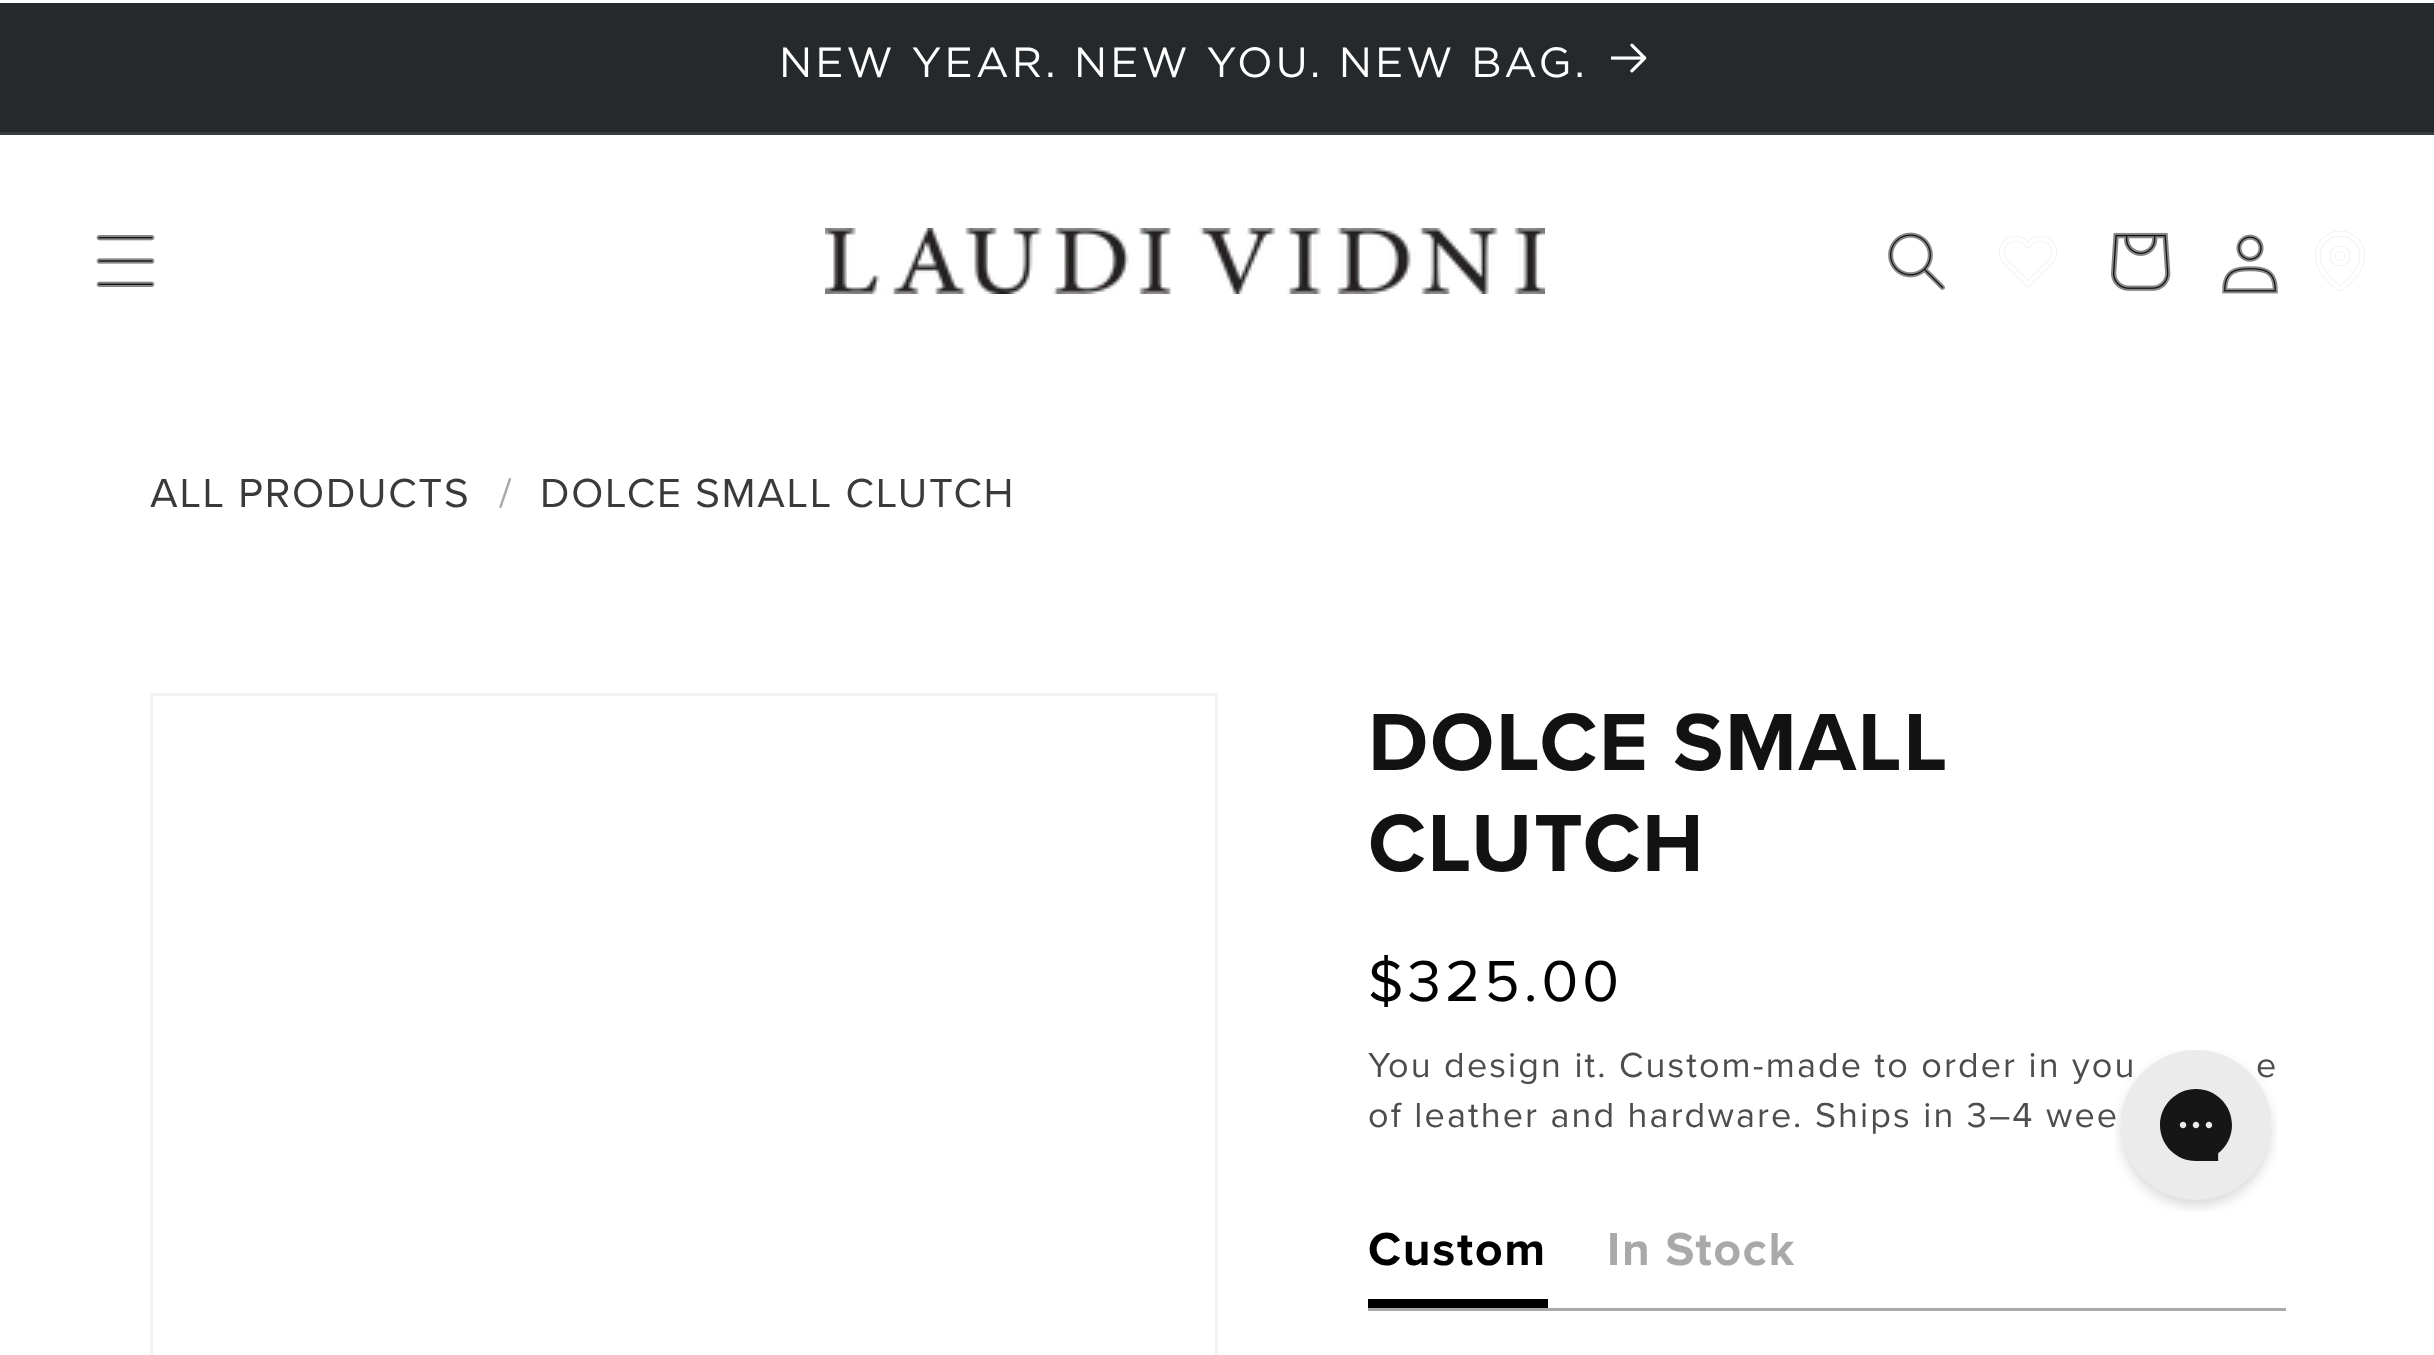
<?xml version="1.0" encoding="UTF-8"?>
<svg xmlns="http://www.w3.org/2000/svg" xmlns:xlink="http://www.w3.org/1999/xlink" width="2434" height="1355">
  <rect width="100%" height="100%" fill="#ffffff" />
  <rect y="3" width="2434" height="129" fill="#25292b" />
  <rect y="132" width="2434" height="3" fill="#363a3c" />
  <image x="1611" y="43" width="36" height="30" xlink:href="image1.png" />
  <image x="96" y="235" width="59" height="52" xlink:href="image2.png" />
  <image x="825" y="228" width="720" height="66" xlink:href="image3.png" />
  <image x="1888" y="232" width="57" height="58" xlink:href="image4.png" />
  <image x="1999" y="235" width="58" height="52" xlink:href="image5.png" />
  <image x="2111" y="232" width="60" height="59" xlink:href="image6.png" />
  <image x="2222" y="234" width="56" height="60" xlink:href="image7.png" />
  <image x="2315" y="231" width="50" height="60" xlink:href="image8.png" />
  <rect x="151.5" y="694.5" width="1065" height="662" fill="none" stroke="#f3f3f3" stroke-width="3" />
  <rect x="1368" y="1308" width="918" height="3" fill="#a9a9a9" />
  <rect x="1368" y="1299" width="180" height="9" fill="#000000" />
  <text x="779" y="77" style="font-family: Gotham; font-size: 42px; letter-spacing: 3px; fill: #ffffff">NEW YEAR. NEW YOU. NEW BAG.</text>
  <text x="150" y="507" style="font-family: Proxima Nova; font-size: 42px; letter-spacing: 1.75px; fill: #3a3a3a">ALL PRODUCTS</text>
  <text x="499" y="507" style="font-family: Proxima Nova; font-size: 42px; letter-spacing: 1.75px; fill: #a9a9a9">/</text>
  <text x="540" y="507" style="font-family: Proxima Nova; font-size: 42px; letter-spacing: 1.75px; fill: #3a3a3a">DOLCE SMALL CLUTCH</text>
  <text x="1368" y="770" style="font-family: Proxima Nova; font-size: 84px; font-weight: bold; letter-spacing: 1.75px; fill: #121212">DOLCE SMALL</text>
  <text x="1368" y="871" style="font-family: Proxima Nova; font-size: 84px; font-weight: bold; letter-spacing: 1.75px; fill: #121212">CLUTCH</text>
  <text x="1368" y="1001" style="font-family: Proxima Nova; font-size: 60px; letter-spacing: 4px; fill: #000000">$325.00</text>
  <text x="1368" y="1077" style="font-family: Proxima Nova; font-size: 36px; letter-spacing: 2.1px; fill: #4d4d4d">You design it. Custom-made to order in you</text>
  <text x="2256" y="1077" style="font-family: Proxima Nova; font-size: 36px; letter-spacing: 2.1px; fill: #4d4d4d">e</text>
  <text x="1368" y="1127" style="font-family: Proxima Nova; font-size: 36px; letter-spacing: 2.1px; fill: #4d4d4d">of leather and hardware. Ships in 3–4 wee</text>
  <text x="1368" y="1265" style="font-family: Proxima Nova; font-size: 48px; font-weight: bold; letter-spacing: 1.75px; fill: #000000">Custom</text>
  <text x="1607" y="1265" style="font-family: Proxima Nova; font-size: 48px; font-weight: bold; letter-spacing: 1.75px; fill: #a9a9a9">In Stock</text>
  <image x="2115" y="1050" width="162" height="162" xlink:href="image9.png" />
</svg>
